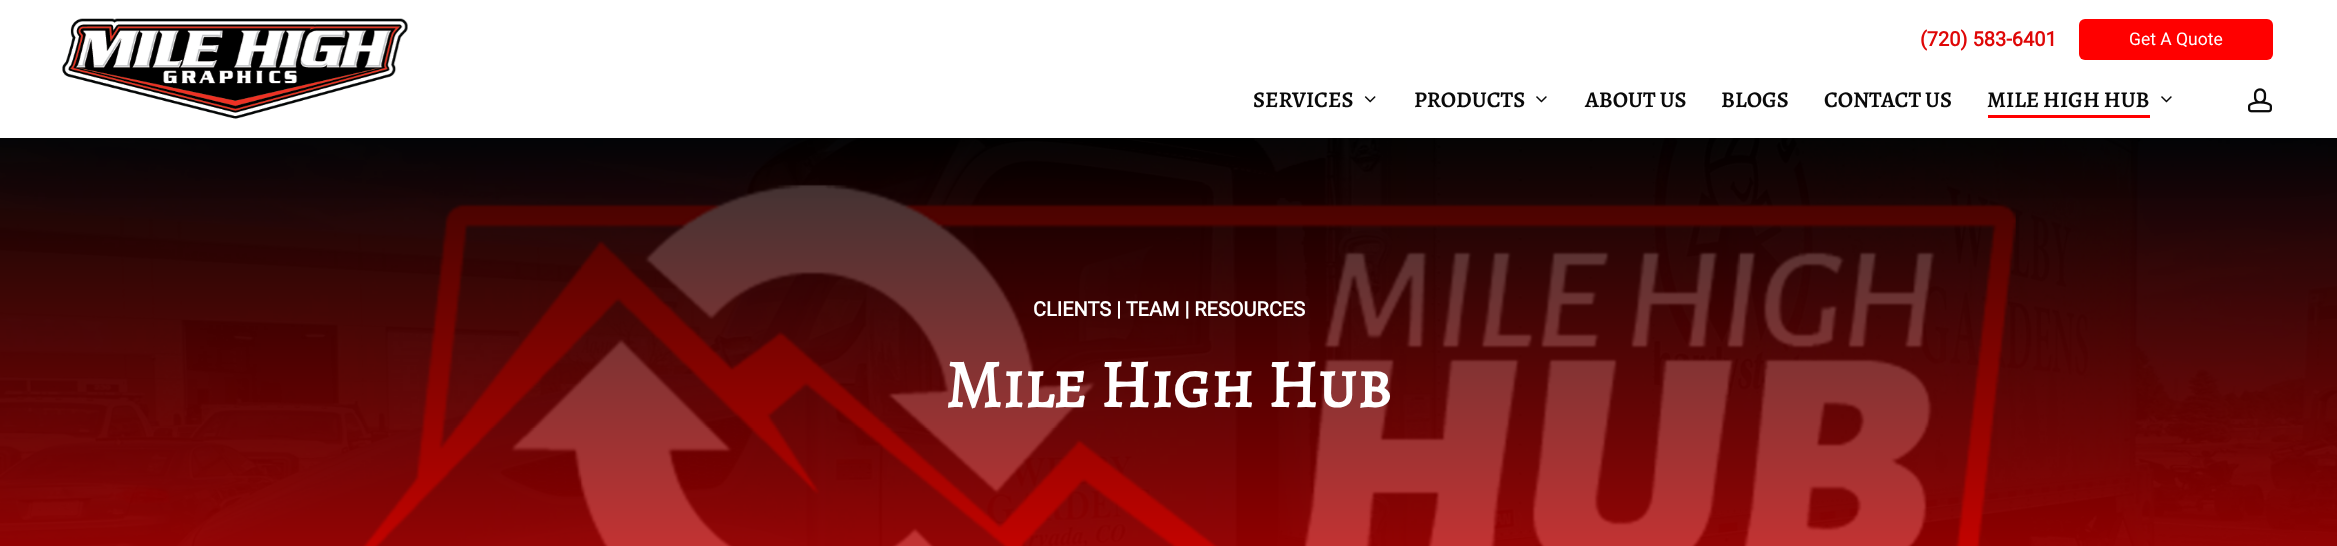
<?xml version="1.0" encoding="UTF-8"?>
<svg xmlns="http://www.w3.org/2000/svg" xmlns:xlink="http://www.w3.org/1999/xlink" width="2337" height="546">
  <defs>
    <clipPath id="clip1"><path d="M 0 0 h 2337 v 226 h -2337 z m 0 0 h 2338 v 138 h -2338 z" clip-rule="evenodd" /></clipPath>
  </defs>
  <rect width="100%" height="100%" fill="#ffffff" />
  <image x="0" y="138" width="2337" height="408" xlink:href="image5.png" />
  <g clip-path="url(#clip1)">
    <rect y="4" width="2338" height="137" fill="#000000" fill-opacity="0.15" filter="blur(28px)" />
  </g>
  <rect y="137" width="2337" height="1" fill="#ffffff" fill-opacity="0.7" />
  <image x="62" y="18" width="346" height="101" xlink:href="image1.png" />
  <rect x="2079" y="19" width="194" height="41" rx="6" fill="#ff0000" />
  <image x="2248" y="88" width="24" height="25" xlink:href="image2.png" />
  <image x="1364" y="96" width="12" height="7" xlink:href="image3.png" />
  <image x="1536" y="96" width="11" height="7" xlink:href="image4.png" />
  <rect x="1988" y="115" width="162" height="3" fill="#ff0000" />
  <image x="2161" y="96" width="11" height="7" xlink:href="image4.png" />
  <text x="1920" y="46" style="font-family: Roboto; font-size: 20px; font-weight: bold; fill: #df0707">(720) 583-6401</text>
  <text x="2129" y="45" style="font-family: Roboto; font-size: 17.5px; fill: #ffffff">Get A Quote</text>
  <text x="1253" y="107" style="font-family: Alegreya; font-size: 22.5px; font-weight: 600; fill: #0a0a0a">SERVICES</text>
  <text x="1414" y="107" style="font-family: Alegreya; font-size: 22.5px; font-weight: 600; fill: #0a0a0a">PRODUCTS</text>
  <text x="1585" y="107" style="font-family: Alegreya; font-size: 22.5px; font-weight: 600; fill: #0a0a0a">ABOUT US</text>
  <text x="1721" y="107" style="font-family: Alegreya; font-size: 22.5px; font-weight: 600; fill: #0a0a0a">BLOGS</text>
  <text x="1824" y="107" style="font-family: Alegreya; font-size: 22.5px; font-weight: 600; fill: #0a0a0a">CONTACT US</text>
  <text x="1987" y="107" style="font-family: Alegreya; font-size: 22.5px; font-weight: 600; fill: #0a0a0a">MILE HIGH HUB</text>
  <text x="1033" y="316" style="font-family: Roboto; font-size: 20px; font-weight: bold; fill: #ffffff">CLIENTS | TEAM | RESOURCES</text>
  <text x="945" y="407" style="font-family: Alegreya SC; font-size: 67.5px; font-weight: bold; fill: #ffffff">Mile High Hub</text>
</svg>
